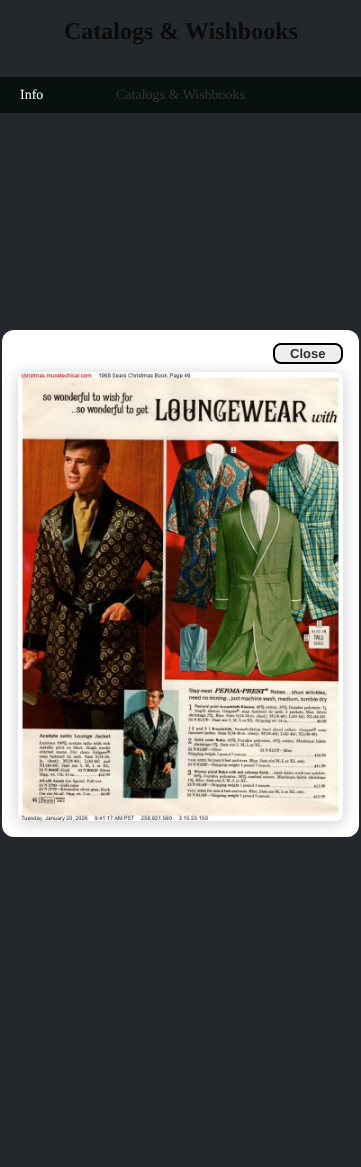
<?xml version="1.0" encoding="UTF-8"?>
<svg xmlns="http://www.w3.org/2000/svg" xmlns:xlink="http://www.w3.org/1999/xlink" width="361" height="1167">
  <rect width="100%" height="100%" fill="#24282d" />
  <rect x="2" y="330" width="357" height="507" rx="12" fill="#ffffff" />
  <rect x="18" y="374" width="325" height="449" rx="8" fill="#000000" fill-opacity="0.2" filter="blur(8px)" />
  <rect x="274" y="344" width="68" height="19" rx="7" fill="#eeeeee" stroke="#000000" stroke-width="2" />
  <image x="18" y="372" width="325" height="449" xlink:href="image1.png" />
  <rect y="77" width="361" height="36" fill="#091010" />
  <text x="64" y="39" style="font-family: Liberation Serif; font-size: 24px; font-weight: bold; fill: #0a0a0a">Catalogs &amp; Wishbooks</text>
  <text x="290" y="358" style="font-family: Liberation Sans; font-size: 13px; font-weight: bold; fill: #333333">Close</text>
  <text x="20" y="99" style="font-family: Liberation Serif; font-size: 14px; fill: #ffffff">Info</text>
  <text x="116" y="99" style="font-family: Liberation Serif; font-size: 14px; fill: #333333">Catalogs &amp; Wishbooks</text>
</svg>
